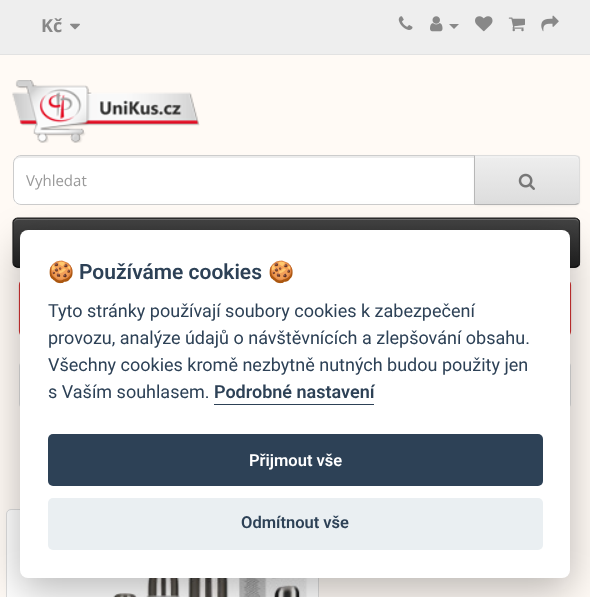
<?xml version="1.0" encoding="UTF-8"?>
<svg xmlns="http://www.w3.org/2000/svg" xmlns:xlink="http://www.w3.org/1999/xlink" width="590" height="597">
  <defs>
    <clipPath id="clip1"><path d="M 474 155 h 101 c 3 0 5 2 5 5 v 40 c 0 3 -2 5 -5 5 h -101 z" /></clipPath>
    <linearGradient id="g1" gradientUnits="userSpaceOnUse" x1="527" y1="156" x2="527" y2="204"><stop offset="0" stop-color="#eeeeee" /><stop offset="1" stop-color="#dddddd" /></linearGradient>
    <clipPath id="clip2"><rect x="13" y="218" width="567" height="50" rx="5" /></clipPath>
    <linearGradient id="g2" gradientUnits="userSpaceOnUse" x1="296" y1="219" x2="296" y2="266"><stop offset="0" stop-color="#444444" /><stop offset="1" stop-color="#222222" /></linearGradient>
  </defs>
  <rect width="100%" height="100%" fill="#fffaf5" />
  <rect width="590" height="54" fill="#eeeeee" />
  <rect y="54" width="590" height="1" fill="#e2e2e2" />
  <image x="70" y="23" width="10" height="7" xlink:href="image1.png" />
  <image x="398" y="16" width="15" height="14" xlink:href="image2.png" />
  <image x="430" y="16" width="13" height="16" xlink:href="image3.png" />
  <path d="M 449 24 h 10 l -5 5 z" fill="#888888" />
  <image x="475" y="16" width="18" height="16" xlink:href="image4.png" />
  <image x="508" y="17" width="17" height="15" xlink:href="image5.png" />
  <image x="541" y="15" width="18" height="17" xlink:href="image6.png" />
  <image x="12" y="80" width="188" height="63" xlink:href="image7.png" />
  <path d="M 21 155 h 454 v 50 h -454 c -4.5 0 -8 -3.5 -8 -8 v -34 c 0 -4.5 3.5 -8 8 -8 z" fill="#ffffff" />
  <path d="M 20 158 h 454 v -2 h -454 c -5 0 -6 4 -6 8 c 0 -4 3 -6 6 -6 z" fill="#ececec" />
  <path d="M 21 155.5 h 453.5 v 49 h -453.5 c -4 0 -7.5 -3.5 -7.5 -7.5 v -34 c 0 -4 3.5 -7.5 7.5 -7.5 z" fill="none" stroke="#cccccc" />
  <rect x="474" y="156" width="106" height="50" rx="5" fill="#000000" fill-opacity="0.05" filter="blur(1px)" />
  <g clip-path="url(#clip1)">
    <rect x="475" y="156" width="105" height="48" fill="url(#g1)" />
  </g>
  <path d="M 475 158 h 100 c 2 0 4 1 4 3 v -1 c 0 -2 -2 -4 -4 -4 h -100 z" fill="#f1f1f1" />
  <path d="M 474 155 l 1 1 h 100 l 3 1 l 1 -1 c -1 0 -3 -1 -4 -1 z" fill="#dddddd" />
  <path d="M 580 200 v -40 c 0 -2 0 -3 -1 -4 l -1 1 c 0 1 1 2 1 3 v 40 c 0 1 -1 2 -1 3 l 1 1 c 1 -1 1 -2 1 -4 z" fill="#dddddd" />
  <path d="M 474 205 h 102 l 3 -1 l -1 -1 l -3 1 h -100 z" fill="#b3b3b3" />
  <path d="M 474 155 v 50 l 1 -1 v -48 z" fill="#b7b7b7" />
  <image x="518" y="173" width="17" height="17" xlink:href="image8.png" />
  <rect x="13" y="219" width="567" height="50" rx="5" fill="#000000" fill-opacity="0.05" filter="blur(1px)" />
  <rect x="13" y="218" width="567" height="50" rx="5" fill="#363636" />
  <g clip-path="url(#clip2)">
    <rect x="13" y="219" width="567" height="47" fill="url(#g2)" />
  </g>
  <path d="M 18 220 h 557 c 2 0 4 2 4 4 c 0 -3 -1 -5 -4 -5 h -557 c -3 0 -4 2 -4 5 c 0 -2 1 -4 4 -4 z" fill="#696969" />
  <path d="M 578 265.5 c -0.5 1 -2 1.5 -3 1.5 h -557.5 c -1 0 -2.5 -0.5 -3 -1.5" fill="none" stroke="#000000" stroke-width="1.2" />
  <path d="M 14.5 265.5 c -1 -0.5 -1.5 -2 -1.5 -3 v -40 c 0 -1 0.5 -2.5 1.5 -3 c 0.5 -1 2 -1.5 3 -1.5 h 557.5 c 1 0 2.5 0.5 3 1.5 c 1 0.5 1.5 2 1.5 3 v 40 c 0 1 -0.5 2.5 -1.5 3" fill="none" stroke="#222222" stroke-width="1.2" />
  <path d="M 20.5 334.5 c -0.5 -1 -1 -2 -1 -3.5 v -46 c 0 -1 0.5 -2.5 1 -3 c 1 -1 2 -1.5 3.5 -1.5 h 542 c 1.5 0 2.5 0.5 3.5 1.5 c 0.5 0.5 1 2 1 3 v 46 c 0 1.5 -0.5 2.5 -1 3.5" fill="none" stroke="#d23232" stroke-width="1.2" />
  <rect x="19.5" y="361.5" width="551" height="47" rx="4.5" fill="none" stroke="#dddddd" />
  <rect x="6.5" y="509.5" width="312" height="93" rx="4.5" fill="#ffffff" stroke="#dddddd" />
  <image x="113" y="578" width="197" height="19" xlink:href="image9.png" />
  <rect x="20" y="243" width="550" height="347" rx="8" fill="#020203" fill-opacity="0.28" filter="blur(19px)" />
  <rect x="20" y="230" width="550" height="348" rx="8" fill="#ffffff" />
  <rect x="214" y="404" width="160" height="1" fill="#2d4156" />
  <rect x="48" y="434" width="495" height="52" rx="5" fill="#2d4156" />
  <rect x="48" y="498" width="495" height="52" rx="5" fill="#eaeff2" />
  <text x="41" y="32" style="font-family: Open Sans; font-size: 18px; font-weight: bold; fill: #888888">Kč</text>
  <text x="26" y="186" style="font-family: Open Sans; font-size: 15px; fill: #999999">Vyhledat</text>
  <text x="48" y="279" style="font-family: Noto Color Emoji; font-size: 21px; font-weight: bold; fill: #2d4156">🍪</text>
  <text x="79" y="279" style="font-family: Roboto; font-size: 21px; font-weight: 600; fill: #2d4156">Používáme cookies</text>
  <text x="268" y="279" style="font-family: Noto Color Emoji; font-size: 21px; font-weight: bold; fill: #2d4156">🍪</text>
  <text x="48" y="317" style="font-family: Roboto; font-size: 18px; fill: #2d4156">Tyto stránky používají soubory cookies k zabezpečení</text>
  <text x="48" y="344" style="font-family: Roboto; font-size: 18px; fill: #2d4156">provozu, analýze údajů o návštěvnících a zlepšování obsahu.</text>
  <text x="48" y="371" style="font-family: Roboto; font-size: 18px; fill: #2d4156">Všechny cookies kromě nezbytně nutných budou použity jen</text>
  <text x="48" y="398" style="font-family: Roboto; font-size: 18px; fill: #2d4156">s Vaším souhlasem.</text>
  <text x="214" y="398" style="font-family: Roboto; font-size: 18px; font-weight: 600; fill: #2d4156">Podrobné nastavení</text>
  <text x="249" y="466" style="font-family: Roboto; font-size: 16.5px; font-weight: 600; fill: #ffffff">Přijmout vše</text>
  <text x="241" y="528" style="font-family: Roboto; font-size: 16.5px; font-weight: 600; fill: #2d4156">Odmítnout vše</text>
</svg>
